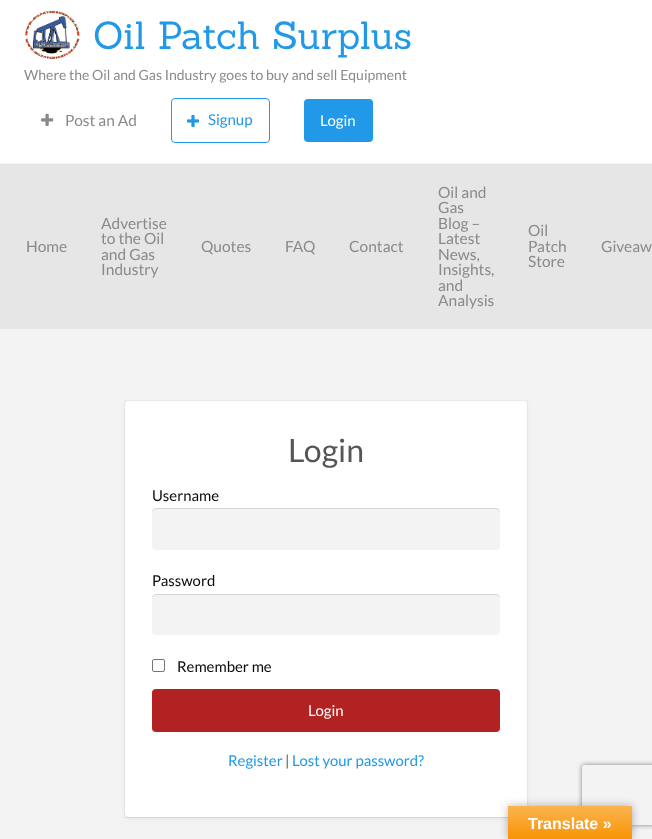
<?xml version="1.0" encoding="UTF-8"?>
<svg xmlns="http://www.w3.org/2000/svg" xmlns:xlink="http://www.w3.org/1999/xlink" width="652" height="839">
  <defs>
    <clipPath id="clip1"><path d="M 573 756 h 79 v 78 h -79 z m 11 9 h 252 c 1 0 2 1 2 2 v 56 c 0 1 -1 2 -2 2 h -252 c -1 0 -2 -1 -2 -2 v -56 c 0 -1 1 -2 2 -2 z" clip-rule="evenodd" /></clipPath>
    <linearGradient id="g1" gradientUnits="userSpaceOnUse" x1="570" y1="806" x2="570" y2="839"><stop offset="0" stop-color="#fbb450" /><stop offset="1" stop-color="#f89406" /></linearGradient>
  </defs>
  <rect width="100%" height="100%" fill="#f3f3f4" />
  <rect width="652" height="163" fill="#ffffff" />
  <image x="24" y="10" width="56" height="49" xlink:href="image1.png" />
  <image x="41" y="113" width="13" height="13" xlink:href="image2.png" />
  <rect x="171.5" y="98.5" width="98" height="44" rx="3.5" fill="none" stroke="#2199e8" />
  <image x="187" y="115" width="12" height="12" xlink:href="image3.png" />
  <rect x="304" y="99" width="69" height="43" rx="4" fill="#2199e8" />
  <rect y="164" width="652" height="165" fill="#e6e6e6" />
  <rect x="125" y="403" width="402" height="416" rx="4" fill="#000000" fill-opacity="0.05" filter="blur(2.5px)" />
  <rect x="125" y="402" width="402" height="416" rx="4" fill="#000000" fill-opacity="0.05" filter="blur(0.5px)" />
  <rect x="124.5" y="400.5" width="403" height="417" fill="none" stroke="#000000" stroke-opacity="0.03" />
  <rect x="125" y="401" width="402" height="416" rx="4" fill="#ffffff" />
  <rect x="152" y="508" width="348" height="42" rx="4" fill="#f3f3f4" />
  <path d="M 156 509 h 340 c 2 0 4 2 4 4 v -1 c 0 -2 -2 -4 -4 -4 h -340 c -2 0 -4 2 -4 4 v 1 c 0 -2 2 -4 4 -4 z" fill="#000000" fill-opacity="0.12" />
  <rect x="152" y="594" width="348" height="41" rx="4" fill="#f3f3f4" />
  <path d="M 156 595 h 340 c 2 0 4 2 4 4 v -1 c 0 -2 -2 -4 -4 -4 h -340 c -2 0 -4 2 -4 4 v 1 c 0 -2 2 -4 4 -4 z" fill="#000000" fill-opacity="0.12" />
  <rect x="152.5" y="659.5" width="12" height="12" rx="1.5" fill="none" stroke="#767676" />
  <rect x="152" y="689" width="348" height="43" rx="4" fill="#b22222" />
  <rect x="508" y="806" width="124" height="33" fill="#000000" fill-opacity="0.3" filter="blur(4.5px)" />
  <g clip-path="url(#clip1)">
    <rect x="582" y="765" width="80" height="60" rx="2" fill="#808080" filter="blur(2.5px)" />
  </g>
  <rect x="508" y="806" width="124" height="33" fill="url(#g1)" />
  <text x="93" y="49" style="font-family: Sanchez; font-size: 38.25px; fill: #2199e8">Oil Patch Surplus</text>
  <text x="24" y="80" style="font-family: Lato; font-size: 14px; fill: #8a8a8a">Where the Oil and Gas Industry goes to buy and sell Equipment</text>
  <text x="65" y="126" style="font-family: Lato; font-size: 15.5px; fill: #8a8a8a">Post an Ad</text>
  <text x="208" y="125" style="font-family: Lato; font-size: 15px; fill: #2199e8">Signup</text>
  <text x="320" y="126" style="font-family: Lato; font-size: 15px; fill: #fefefe">Login</text>
  <text x="26" y="252" style="font-family: Lato; font-size: 15.5px; fill: #8a8a8a">Home</text>
  <text x="101" y="229" style="font-family: Lato; font-size: 15.5px; fill: #8a8a8a">Advertise</text>
  <text x="101" y="244" style="font-family: Lato; font-size: 15.5px; fill: #8a8a8a">to the Oil</text>
  <text x="101" y="260" style="font-family: Lato; font-size: 15.5px; fill: #8a8a8a">and Gas</text>
  <text x="101" y="275" style="font-family: Lato; font-size: 15.5px; fill: #8a8a8a">Industry</text>
  <text x="201" y="252" style="font-family: Lato; font-size: 15.5px; fill: #8a8a8a">Quotes</text>
  <text x="285" y="252" style="font-family: Lato; font-size: 15.5px; fill: #8a8a8a">FAQ</text>
  <text x="349" y="252" style="font-family: Lato; font-size: 15.5px; fill: #8a8a8a">Contact</text>
  <text x="438" y="198" style="font-family: Lato; font-size: 15.5px; fill: #8a8a8a">Oil and</text>
  <text x="438" y="213" style="font-family: Lato; font-size: 15.5px; fill: #8a8a8a">Gas</text>
  <text x="438" y="229" style="font-family: Lato; font-size: 15.5px; fill: #8a8a8a">Blog –</text>
  <text x="438" y="244" style="font-family: Lato; font-size: 15.5px; fill: #8a8a8a">Latest</text>
  <text x="438" y="260" style="font-family: Lato; font-size: 15.5px; fill: #8a8a8a">News,</text>
  <text x="438" y="275" style="font-family: Lato; font-size: 15.5px; fill: #8a8a8a">Insights,</text>
  <text x="438" y="291" style="font-family: Lato; font-size: 15.5px; fill: #8a8a8a">and</text>
  <text x="438" y="306" style="font-family: Lato; font-size: 15.5px; fill: #8a8a8a">Analysis</text>
  <text x="528" y="236" style="font-family: Lato; font-size: 15.5px; fill: #8a8a8a">Oil</text>
  <text x="528" y="252" style="font-family: Lato; font-size: 15.5px; fill: #8a8a8a">Patch</text>
  <text x="528" y="267" style="font-family: Lato; font-size: 15.5px; fill: #8a8a8a">Store</text>
  <text x="601" y="252" style="font-family: Lato; font-size: 15.5px; fill: #8a8a8a">Giveaw</text>
  <text x="288" y="462" style="font-family: Lato; font-size: 32px; fill: #565656">Login</text>
  <text x="152" y="501" style="font-family: Lato; font-size: 14.9px; fill: #0a0a0a">Username</text>
  <text x="152" y="586" style="font-family: Lato; font-size: 14.9px; fill: #0a0a0a">Password</text>
  <text x="177" y="672" style="font-family: Lato; font-size: 14.9px; fill: #0a0a0a">Remember me</text>
  <text x="308" y="716" style="font-family: Lato; font-size: 15px; fill: #fefefe">Login</text>
  <text x="228" y="766" style="font-family: Lato; font-size: 14.9px; fill: #2199e8">Register</text>
  <text x="285" y="766" style="font-family: Lato; font-size: 14.9px; fill: #565656">|</text>
  <text x="292" y="766" style="font-family: Lato; font-size: 14.9px; fill: #2199e8">Lost your password?</text>
  <text x="528" y="829" style="font-family: Liberation Sans; font-size: 16px; font-weight: bold; fill: #fefefe">Translate »</text>
</svg>
